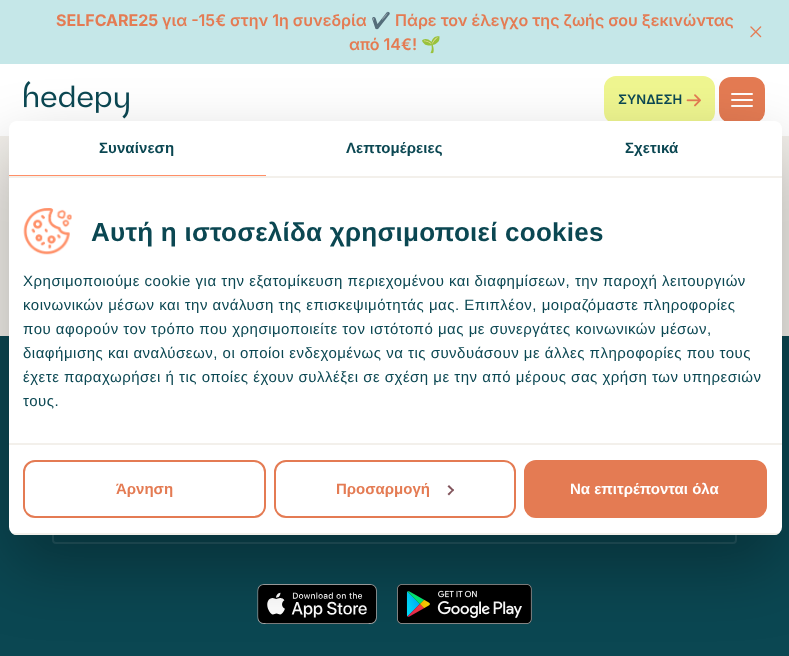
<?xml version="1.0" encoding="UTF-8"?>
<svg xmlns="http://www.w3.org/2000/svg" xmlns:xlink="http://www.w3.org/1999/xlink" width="789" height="656">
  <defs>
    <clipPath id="clip1"><rect x="9" y="121" width="773" height="414" rx="8" /></clipPath>
  </defs>
  <rect width="100%" height="100%" fill="#f3f0eb" />
  <rect width="789" height="64" fill="#c5e7e8" />
  <image x="750" y="26" width="12" height="12" xlink:href="image1.png" />
  <rect y="64" width="789" height="72" fill="#ffffff" />
  <image x="24" y="81" width="105" height="38" xlink:href="image2.png" />
  <rect x="605" y="77" width="109" height="46" rx="11" fill="#eff690" stroke="#eff690" stroke-width="2" />
  <image x="686" y="94" width="15" height="13" xlink:href="image3.png" />
  <rect x="720" y="78" width="44" height="44" rx="11" fill="#e47b53" stroke="#e47b53" stroke-width="2" />
  <rect x="731" y="93" width="22" height="2" rx="1" fill="#ffffff" />
  <rect x="731" y="99" width="22" height="2" rx="1" fill="#ffffff" />
  <rect x="731" y="105" width="22" height="2" rx="1" fill="#ffffff" />
  <rect y="336" width="789" height="320" fill="#0b4752" />
  <rect x="53" y="485" width="683" height="58" rx="3" fill="none" stroke="#235963" stroke-width="2" />
  <image x="257" y="584" width="120" height="40" xlink:href="image4.png" />
  <image x="397" y="584" width="135" height="40" xlink:href="image5.png" />
  <rect x="9" y="153" width="773" height="414" rx="8" fill="#000000" fill-opacity="0.3" filter="blur(34px)" />
  <rect x="9" y="121" width="773" height="414" rx="8" fill="#ffffff" />
  <rect x="9" y="176" width="773" height="2" fill="#f3f0eb" />
  <rect x="9" y="175" width="257" height="1" fill="#ff8f67" />
  <rect x="9" y="443" width="773" height="2" fill="#f3f0eb" />
  <image x="23" y="208" width="49" height="47" xlink:href="image6.png" />
  <g clip-path="url(#clip1)">
    <rect x="9" y="533" width="773" height="2" fill="#f3f0eb" />
  </g>
  <rect x="24" y="461" width="241" height="56" rx="11" fill="none" stroke="#e47b53" stroke-width="2" />
  <rect x="275" y="461" width="240" height="56" rx="11" fill="none" stroke="#e47b53" stroke-width="2" />
  <path d="M 449 485 l 5 5 l -1 1.5 l -5.5 -5 z" fill="#82555c" />
  <path d="M 453 489 l 1 1 l -5 5.5 l -1.5 -1.5 z" fill="#82555c" />
  <rect x="525" y="461" width="241" height="56" rx="11" fill="#e47b53" stroke="#e47b53" stroke-width="2" />
  <text x="56" y="26" style="font-family: Inter; font-size: 16px; font-weight: bold; fill: #e47b53">SELFCARE25</text>
  <text x="162" y="26" style="font-family: Inter; font-size: 16px; font-weight: 600; fill: #e47b53">για -15€ στην 1η συνεδρία</text>
  <text x="371" y="26" style="font-family: Noto Color Emoji; font-size: 16px; font-weight: bold; fill: #e47b53">✔️</text>
  <text x="395" y="26" style="font-family: Inter; font-size: 16px; font-weight: 600; fill: #e47b53">Πάρε τον έλεγχο της ζωής σου ξεκινώντας</text>
  <text x="349" y="50" style="font-family: Inter; font-size: 16px; font-weight: 600; fill: #e47b53">από 14€!</text>
  <text x="421" y="50" style="font-family: Noto Color Emoji; font-size: 16px; font-weight: bold; fill: #e47b53">🌱</text>
  <text x="618" y="104" style="font-family: Inter; font-size: 13px; font-weight: 600; fill: #0b4752">ΣΥΝΔΕΣΗ</text>
  <text x="99" y="153" style="font-family: Liberation Sans; font-size: 15px; font-weight: bold; letter-spacing: 0.1px; fill: #0b4752">Συναίνεση</text>
  <text x="346" y="153" style="font-family: Liberation Sans; font-size: 15px; font-weight: bold; letter-spacing: 0.1px; fill: #0b4752">Λεπτομέρειες</text>
  <text x="625" y="153" style="font-family: Liberation Sans; font-size: 15px; font-weight: bold; letter-spacing: 0.1px; fill: #0b4752">Σχετικά</text>
  <text x="91" y="241" style="font-family: Liberation Sans; font-size: 26px; font-weight: bold; letter-spacing: 0.25px; fill: #0b4752">Αυτή η ιστοσελίδα χρησιμοποιεί cookies</text>
  <text x="23" y="286" style="font-family: Liberation Sans; font-size: 15px; letter-spacing: 0.5px; fill: #0b4752">Χρησιμοποιούμε cookie για την εξατομίκευση περιεχομένου και διαφημίσεων, την παροχή λειτουργιών</text>
  <text x="23" y="310" style="font-family: Liberation Sans; font-size: 15px; letter-spacing: 0.5px; fill: #0b4752">κοινωνικών μέσων και την ανάλυση της επισκεψιμότητάς μας. Επιπλέον, μοιραζόμαστε πληροφορίες</text>
  <text x="23" y="334" style="font-family: Liberation Sans; font-size: 15px; letter-spacing: 0.5px; fill: #0b4752">που αφορούν τον τρόπο που χρησιμοποιείτε τον ιστότοπό μας με συνεργάτες κοινωνικών μέσων,</text>
  <text x="23" y="358" style="font-family: Liberation Sans; font-size: 15px; letter-spacing: 0.5px; fill: #0b4752">διαφήμισης και αναλύσεων, οι οποίοι ενδεχομένως να τις συνδυάσουν με άλλες πληροφορίες που τους</text>
  <text x="23" y="382" style="font-family: Liberation Sans; font-size: 15px; letter-spacing: 0.5px; fill: #0b4752">έχετε παραχωρήσει ή τις οποίες έχουν συλλέξει σε σχέση με την από μέρους σας χρήση των υπηρεσιών</text>
  <text x="23" y="406" style="font-family: Liberation Sans; font-size: 15px; letter-spacing: 0.5px; fill: #0b4752">τους.</text>
  <text x="116" y="494" style="font-family: Liberation Sans; font-size: 15px; font-weight: bold; fill: #e47b53">Άρνηση</text>
  <text x="336" y="494" style="font-family: Liberation Sans; font-size: 15px; font-weight: bold; fill: #e47b53">Προσαρμογή</text>
  <text x="570" y="494" style="font-family: Liberation Sans; font-size: 15px; font-weight: bold; fill: #ffffff">Να επιτρέπονται όλα</text>
</svg>
